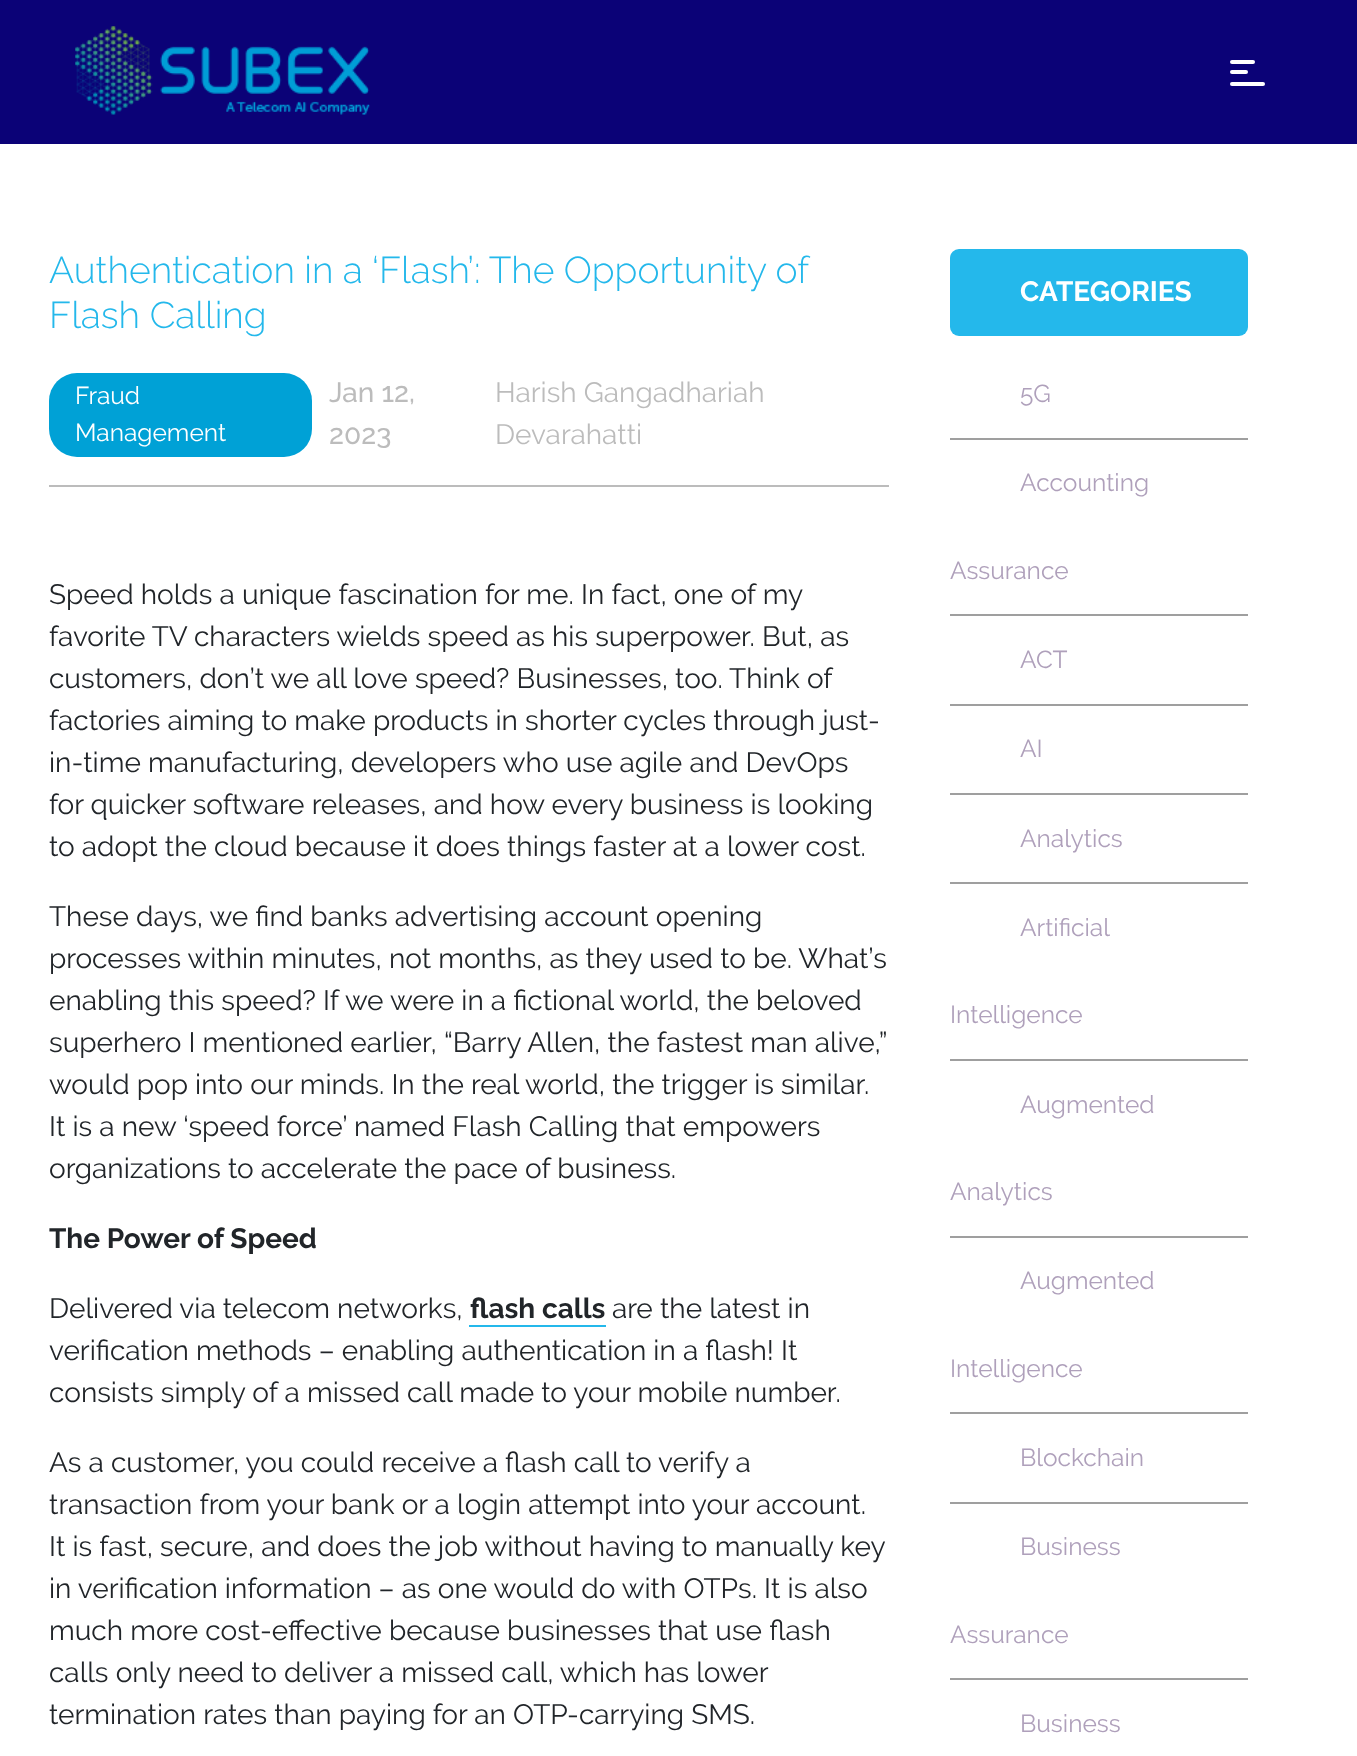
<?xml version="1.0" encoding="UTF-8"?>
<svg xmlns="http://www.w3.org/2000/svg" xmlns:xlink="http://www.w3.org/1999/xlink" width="1357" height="1756">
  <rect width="100%" height="100%" fill="#ffffff" />
  <rect width="1357" height="144" fill="#0b0277" />
  <image x="75" y="26" width="295" height="89" xlink:href="image1.png" />
  <rect x="1230" y="60" width="25" height="4" rx="2" fill="#ffffff" />
  <rect x="1230" y="70" width="18" height="4" rx="2" fill="#ffffff" />
  <rect x="1230" y="82" width="35" height="4" rx="2" fill="#ffffff" />
  <rect x="49" y="485" width="840" height="2" fill="#bcbcbc" />
  <rect x="49" y="373" width="263" height="84" rx="28" fill="#00a1d6" />
  <rect x="469" y="1325" width="137" height="2" fill="#24b8eb" />
  <rect x="950" y="249" width="298" height="87" rx="9" fill="#24b8eb" />
  <rect x="950" y="438" width="298" height="2" fill="#9f9f9f" />
  <rect x="950" y="614" width="298" height="2" fill="#9f9f9f" />
  <rect x="950" y="704" width="298" height="2" fill="#9f9f9f" />
  <rect x="950" y="793" width="298" height="2" fill="#9f9f9f" />
  <rect x="950" y="882" width="298" height="2" fill="#9f9f9f" />
  <rect x="950" y="1059" width="298" height="2" fill="#9f9f9f" />
  <rect x="950" y="1236" width="298" height="2" fill="#9f9f9f" />
  <rect x="950" y="1412" width="298" height="2" fill="#9f9f9f" />
  <rect x="950" y="1502" width="298" height="2" fill="#9f9f9f" />
  <rect x="950" y="1678" width="298" height="2" fill="#9f9f9f" />
  <text x="49" y="283" word-spacing="-0.25" style="font-family: Raleway; font-size: 37.25px; font-weight: 300; fill: #24b8eb">Authentication in a ‘Flash’: The Opportunity of</text>
  <text x="49" y="328" style="font-family: Raleway; font-size: 37.25px; font-weight: 300; fill: #24b8eb">Flash Calling</text>
  <text x="75" y="404" style="font-family: Raleway; font-size: 24.5px; fill: #ffffff">Fraud</text>
  <text x="75" y="441" style="font-family: Raleway; font-size: 24.5px; fill: #ffffff">Management</text>
  <text x="329" y="402" style="font-family: Raleway; font-size: 28px; font-weight: 500; fill: #bcbcbc">Jan 12,</text>
  <text x="329" y="444" style="font-family: Raleway; font-size: 28px; font-weight: 500; fill: #bcbcbc">2023</text>
  <text x="495" y="402" style="font-family: Raleway; font-size: 28px; fill: #bcbcbc">Harish Gangadhariah</text>
  <text x="495" y="444" style="font-family: Raleway; font-size: 28px; fill: #bcbcbc">Devarahatti</text>
  <text x="49" y="604" style="font-family: Raleway; font-size: 28px; fill: #212529">Speed holds a unique fascination for me. In fact, one of my</text>
  <text x="49" y="646" style="font-family: Raleway; font-size: 28px; fill: #212529">favorite TV characters wields speed as his superpower. But, as</text>
  <text x="49" y="688" style="font-family: Raleway; font-size: 28px; fill: #212529">customers, don’t we all love speed? Businesses, too. Think of</text>
  <text x="49" y="730" style="font-family: Raleway; font-size: 28px; fill: #212529">factories aiming to make products in shorter cycles through just-</text>
  <text x="49" y="772" style="font-family: Raleway; font-size: 28px; fill: #212529">in-time manufacturing, developers who use agile and DevOps</text>
  <text x="49" y="814" style="font-family: Raleway; font-size: 28px; fill: #212529">for quicker software releases, and how every business is looking</text>
  <text x="49" y="856" style="font-family: Raleway; font-size: 28px; fill: #212529">to adopt the cloud because it does things faster at a lower cost.</text>
  <text x="49" y="926" style="font-family: Raleway; font-size: 28px; fill: #212529">These days, we find banks advertising account opening</text>
  <text x="49" y="968" style="font-family: Raleway; font-size: 28px; fill: #212529">processes within minutes, not months, as they used to be. What’s</text>
  <text x="49" y="1010" style="font-family: Raleway; font-size: 28px; fill: #212529">enabling this speed? If we were in a fictional world, the beloved</text>
  <text x="49" y="1052" style="font-family: Raleway; font-size: 28px; fill: #212529">superhero I mentioned earlier, “Barry Allen, the fastest man alive,”</text>
  <text x="49" y="1094" style="font-family: Raleway; font-size: 28px; fill: #212529">would pop into our minds. In the real world, the trigger is similar.</text>
  <text x="49" y="1136" style="font-family: Raleway; font-size: 28px; fill: #212529">It is a new ‘speed force’ named Flash Calling that empowers</text>
  <text x="49" y="1178" style="font-family: Raleway; font-size: 28px; fill: #212529">organizations to accelerate the pace of business.</text>
  <text x="49" y="1248" style="font-family: Raleway; font-size: 28px; font-weight: bold; fill: #212529">The Power of Speed</text>
  <text x="49" y="1318" style="font-family: Raleway; font-size: 28px; fill: #212529">Delivered via telecom networks,</text>
  <text x="470" y="1318" style="font-family: Raleway; font-size: 28px; font-weight: bold; fill: #212529">flash calls</text>
  <text x="612" y="1318" style="font-family: Raleway; font-size: 28px; fill: #212529">are the latest in</text>
  <text x="49" y="1360" style="font-family: Raleway; font-size: 28px; fill: #212529">verification methods – enabling authentication in a flash! It</text>
  <text x="49" y="1402" style="font-family: Raleway; font-size: 28px; fill: #212529">consists simply of a missed call made to your mobile number.</text>
  <text x="49" y="1472" style="font-family: Raleway; font-size: 28px; fill: #212529">As a customer, you could receive a flash call to verify a</text>
  <text x="49" y="1514" style="font-family: Raleway; font-size: 28px; fill: #212529">transaction from your bank or a login attempt into your account.</text>
  <text x="49" y="1556" style="font-family: Raleway; font-size: 28px; fill: #212529">It is fast, secure, and does the job without having to manually key</text>
  <text x="49" y="1598" style="font-family: Raleway; font-size: 28px; fill: #212529">in verification information – as one would do with OTPs. It is also</text>
  <text x="49" y="1640" style="font-family: Raleway; font-size: 28px; fill: #212529">much more cost-effective because businesses that use flash</text>
  <text x="49" y="1682" style="font-family: Raleway; font-size: 28px; fill: #212529">calls only need to deliver a missed call, which has lower</text>
  <text x="49" y="1724" style="font-family: Raleway; font-size: 28px; fill: #212529">termination rates than paying for an OTP-carrying SMS.</text>
  <text x="1020" y="301" style="font-family: Raleway; font-size: 28px; font-weight: bold; fill: #ffffff">CATEGORIES</text>
  <text x="1020" y="402" style="font-family: Raleway; font-size: 24.5px; fill: #afa0bb">5G</text>
  <text x="1020" y="491" style="font-family: Raleway; font-size: 24.5px; fill: #afa0bb">Accounting</text>
  <text x="950" y="579" style="font-family: Raleway; font-size: 24.5px; fill: #afa0bb">Assurance</text>
  <text x="1020" y="668" style="font-family: Raleway; font-size: 24.5px; fill: #afa0bb">ACT</text>
  <text x="1020" y="757" style="font-family: Raleway; font-size: 24.5px; fill: #afa0bb">AI</text>
  <text x="1020" y="847" style="font-family: Raleway; font-size: 24.5px; fill: #afa0bb">Analytics</text>
  <text x="1020" y="936" style="font-family: Raleway; font-size: 24.5px; fill: #afa0bb">Artificial</text>
  <text x="950" y="1023" style="font-family: Raleway; font-size: 24.5px; fill: #afa0bb">Intelligence</text>
  <text x="1020" y="1113" style="font-family: Raleway; font-size: 24.5px; fill: #afa0bb">Augmented</text>
  <text x="950" y="1200" style="font-family: Raleway; font-size: 24.5px; fill: #afa0bb">Analytics</text>
  <text x="1020" y="1289" style="font-family: Raleway; font-size: 24.5px; fill: #afa0bb">Augmented</text>
  <text x="950" y="1377" style="font-family: Raleway; font-size: 24.5px; fill: #afa0bb">Intelligence</text>
  <text x="1020" y="1466" style="font-family: Raleway; font-size: 24.5px; fill: #afa0bb">Blockchain</text>
  <text x="1020" y="1555" style="font-family: Raleway; font-size: 24.5px; fill: #afa0bb">Business</text>
  <text x="950" y="1643" style="font-family: Raleway; font-size: 24.5px; fill: #afa0bb">Assurance</text>
  <text x="1020" y="1732" style="font-family: Raleway; font-size: 24.5px; fill: #afa0bb">Business</text>
</svg>
